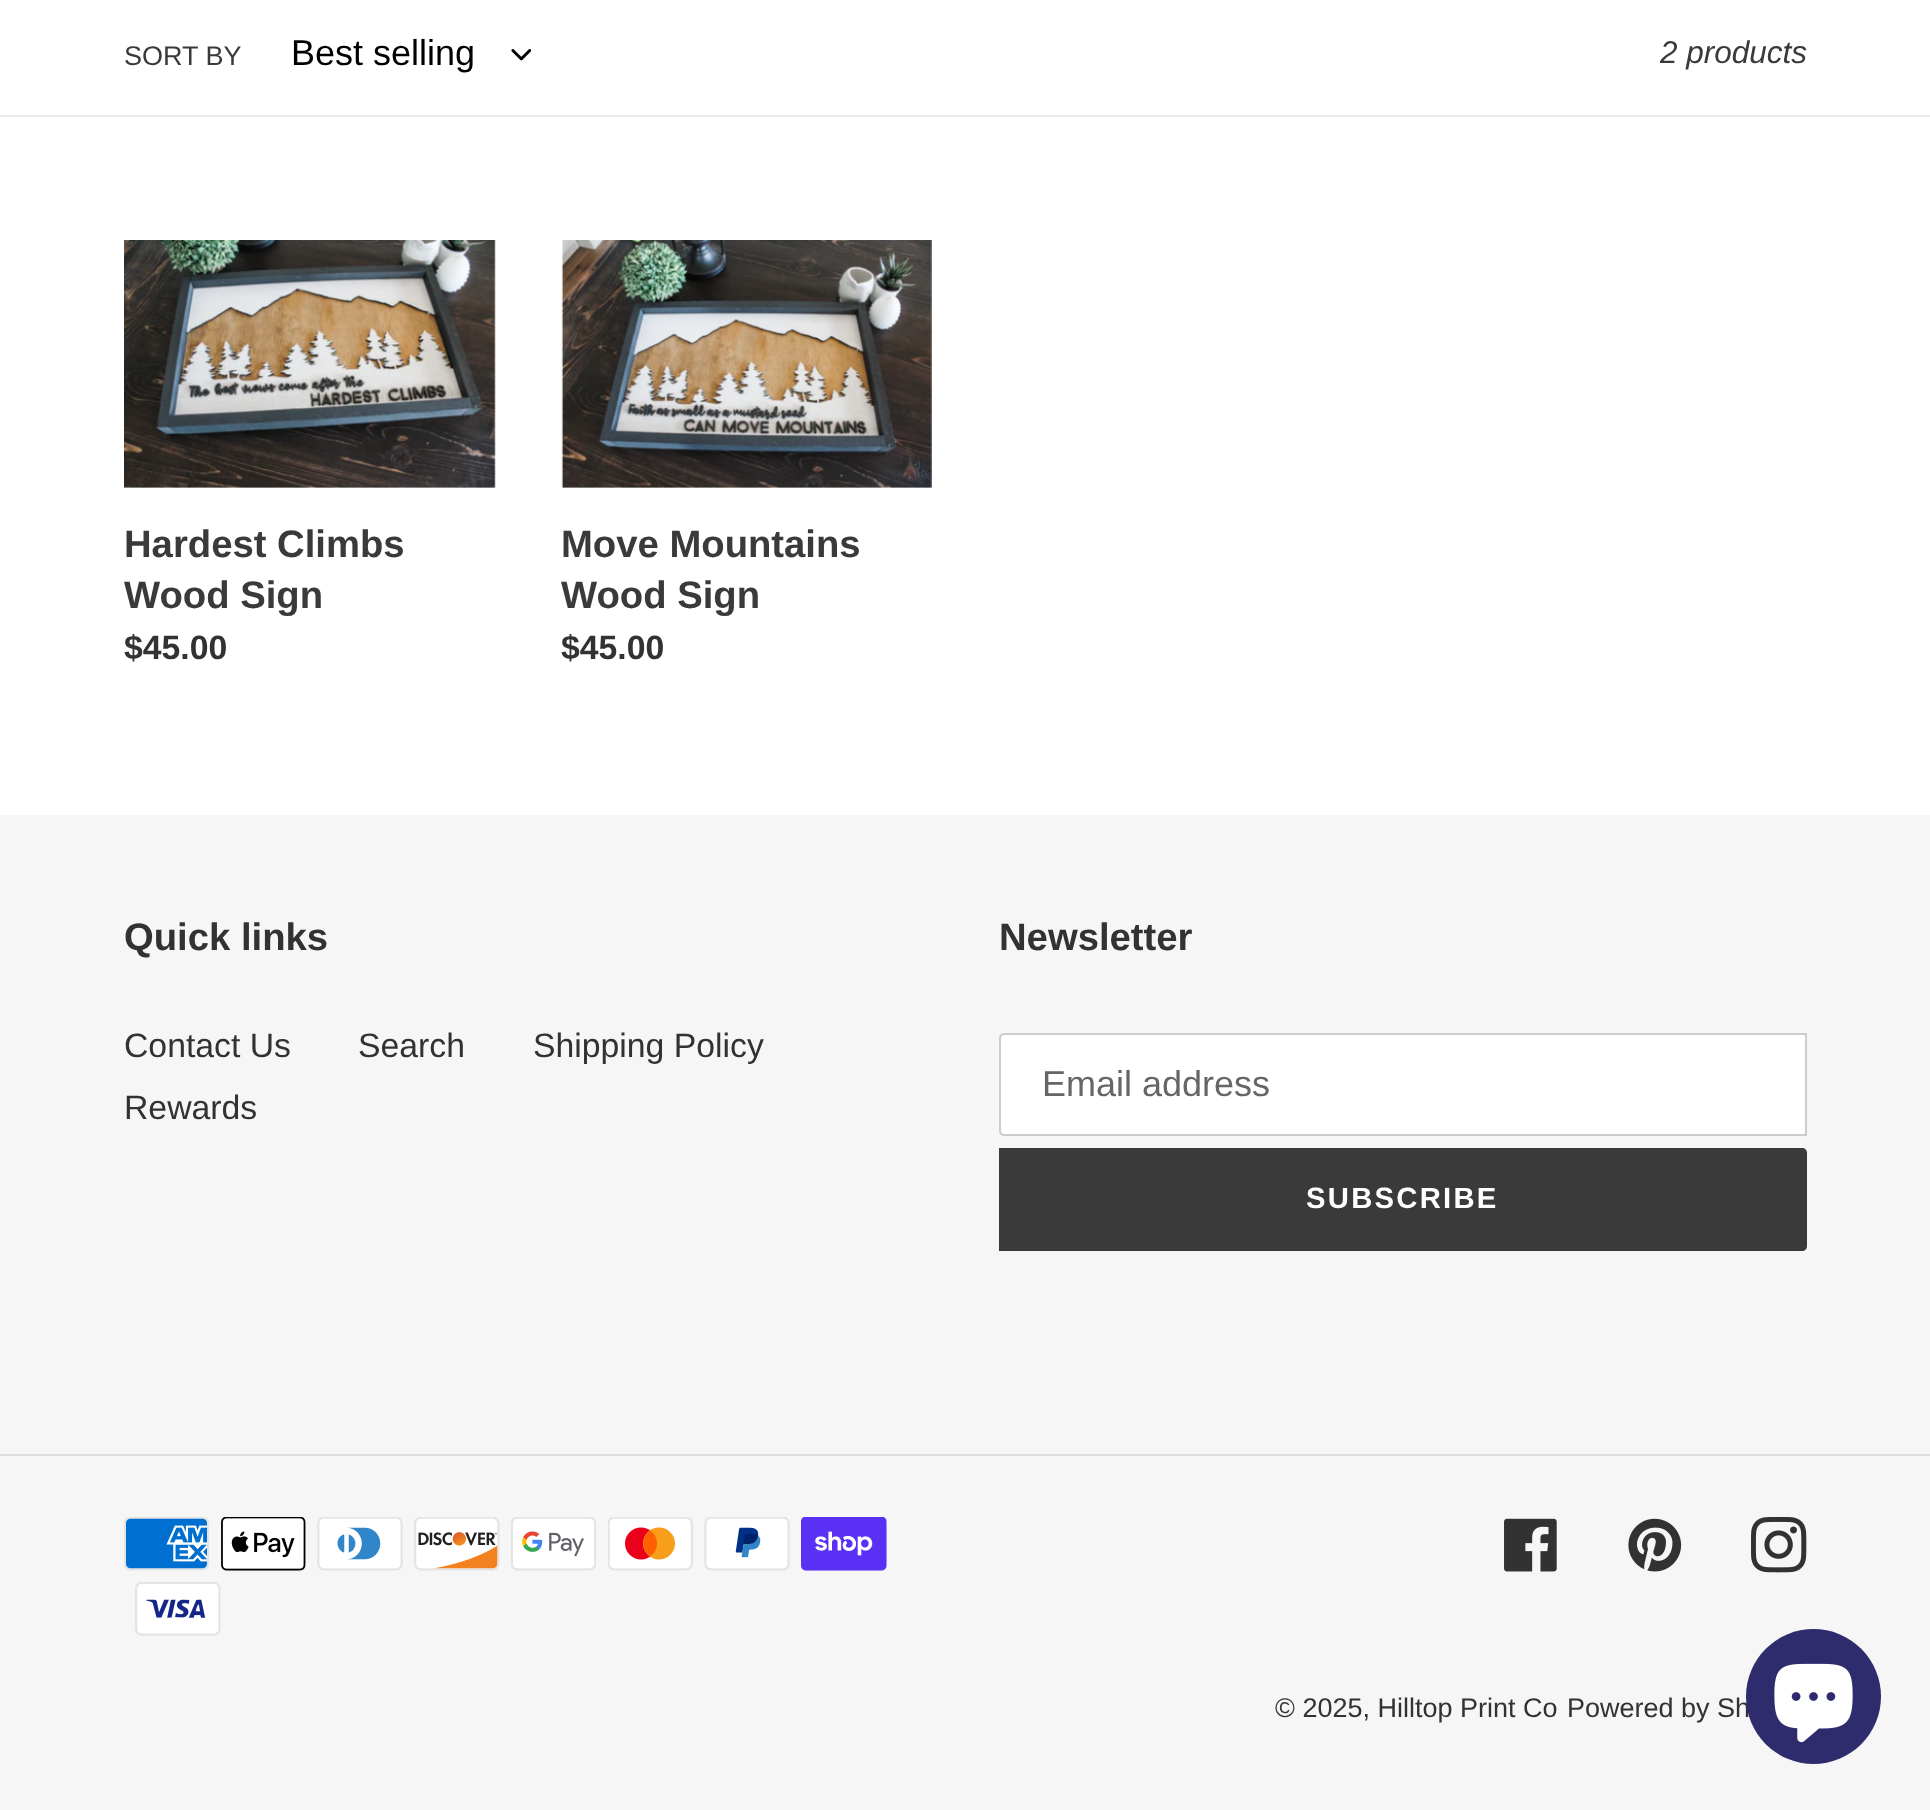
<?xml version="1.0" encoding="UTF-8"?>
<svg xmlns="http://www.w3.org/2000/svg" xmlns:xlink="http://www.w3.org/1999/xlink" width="1930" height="1810">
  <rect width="100%" height="100%" fill="#ffffff" />
  <rect y="115" width="1930" height="2" fill="#ebebeb" />
  <image x="511" y="49" width="20" height="12" xlink:href="image1.png" />
  <image x="124" y="240" width="372" height="248" xlink:href="image2.png" />
  <image x="561" y="240" width="371" height="248" xlink:href="image3.png" />
  <rect y="815" width="1930" height="995" fill="#f6f6f6" />
  <path d="M 1004 1034 h 802 v 101 h -802 c -2 0 -4 -2 -4 -4 v -93 c 0 -2 2 -4 4 -4 z" fill="#ffffff" stroke="#cccccc" stroke-width="2" />
  <path d="M 999 1148 h 803 c 3 0 5 2 5 5 v 93 c 0 3 -2 5 -5 5 h -803 z" fill="#3a3a3a" />
  <rect y="1454" width="1930" height="2" fill="#dddddd" />
  <image x="124" y="1517" width="85" height="54" xlink:href="image4.png" />
  <image x="221" y="1517" width="85" height="54" xlink:href="image5.png" />
  <image x="317" y="1517" width="86" height="54" xlink:href="image6.png" />
  <image x="414" y="1517" width="86" height="54" xlink:href="image7.png" />
  <image x="511" y="1517" width="85" height="54" xlink:href="image8.png" />
  <image x="608" y="1517" width="85" height="54" xlink:href="image9.png" />
  <image x="704" y="1517" width="86" height="54" xlink:href="image10.png" />
  <image x="801" y="1517" width="86" height="54" xlink:href="image11.png" />
  <image x="135" y="1582" width="86" height="54" xlink:href="image12.png" />
  <image x="1504" y="1518" width="53" height="54" xlink:href="image13.png" />
  <image x="1628" y="1518" width="54" height="54" xlink:href="image14.png" />
  <image x="1751" y="1517" width="56" height="56" xlink:href="image15.png" />
  <text x="124" y="65" style="font-family: Liberation Sans; font-size: 27px; fill: #3a3a3a">SORT BY</text>
  <text x="291" y="65" style="font-family: Liberation Sans; font-size: 36px; fill: #000000">Best selling</text>
  <text x="1660" y="63" style="font-family: Liberation Sans; font-size: 31.5px; font-style: italic; fill: #3a3a3a">2 products</text>
  <text x="124" y="557" style="font-family: Liberation Sans; font-size: 38.25px; font-weight: bold; fill: #3a3a3a">Hardest Climbs</text>
  <text x="124" y="608" style="font-family: Liberation Sans; font-size: 38.25px; font-weight: bold; fill: #3a3a3a">Wood Sign</text>
  <text x="124" y="659" style="font-family: Liberation Sans; font-size: 33.75px; font-weight: bold; fill: #333232">$45.00</text>
  <text x="561" y="557" style="font-family: Liberation Sans; font-size: 38.25px; font-weight: bold; fill: #3a3a3a">Move Mountains</text>
  <text x="561" y="608" style="font-family: Liberation Sans; font-size: 38.25px; font-weight: bold; fill: #3a3a3a">Wood Sign</text>
  <text x="561" y="659" style="font-family: Liberation Sans; font-size: 33.75px; font-weight: bold; fill: #333232">$45.00</text>
  <text x="124" y="950" style="font-family: Liberation Sans; font-size: 38.25px; font-weight: bold; fill: #333232">Quick links</text>
  <text x="124" y="1057" style="font-family: Liberation Sans; font-size: 33.75px; fill: #333232">Contact Us</text>
  <text x="358" y="1057" style="font-family: Liberation Sans; font-size: 33.75px; fill: #333232">Search</text>
  <text x="533" y="1057" style="font-family: Liberation Sans; font-size: 33.75px; fill: #333232">Shipping Policy</text>
  <text x="124" y="1119" style="font-family: Liberation Sans; font-size: 33.75px; fill: #333232">Rewards</text>
  <text x="999" y="950" style="font-family: Liberation Sans; font-size: 38.25px; font-weight: bold; fill: #333232">Newsletter</text>
  <text x="1042" y="1096" style="font-family: Liberation Sans; font-size: 36px; fill: #666666">Email address</text>
  <text x="1306" y="1208" style="font-family: Liberation Sans; font-size: 29.25px; font-weight: bold; letter-spacing: 2.25px; fill: #ffffff">SUBSCRIBE</text>
  <text x="1275" y="1717" style="font-family: Liberation Sans; font-size: 27px; fill: #333232">© 2025, Hilltop Print Co</text>
  <text x="1567" y="1717" style="font-family: Liberation Sans; font-size: 27px; fill: #333232">Powered by Sh</text>
  <circle cx="1813.5" cy="1696.5" r="67.5" fill="#2f2c6e" />
  <image x="1774" y="1663" width="79" height="80" xlink:href="image16.png" />
</svg>
